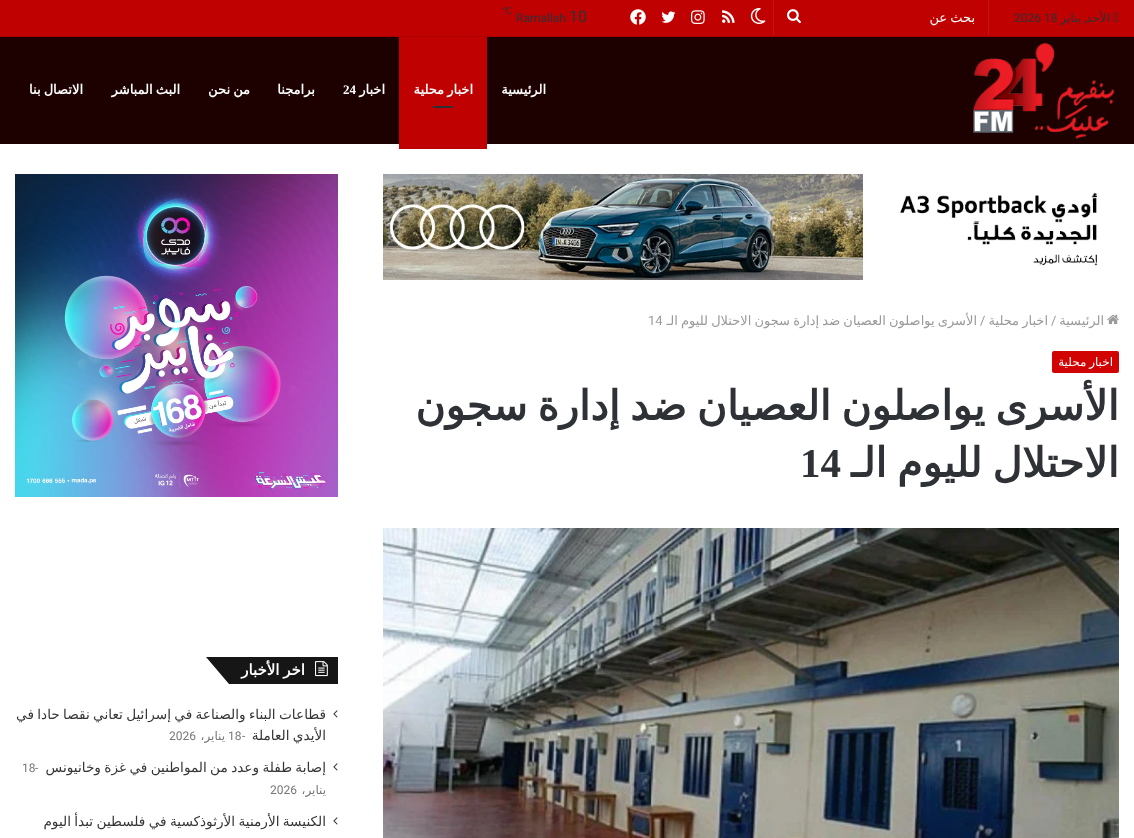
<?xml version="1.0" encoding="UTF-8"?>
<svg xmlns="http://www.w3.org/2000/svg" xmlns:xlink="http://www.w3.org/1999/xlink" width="1134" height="838">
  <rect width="100%" height="100%" fill="#ffffff" />
  <rect width="1134" height="36" fill="#bf0101" />
  <rect y="36" width="1134" height="1" fill="#ac0101" />
  <image x="1113" y="12" width="6" height="10" xlink:href="image1.png" />
  <rect x="988" width="1" height="35" fill="#c41515" />
  <rect x="773" width="1" height="35" fill="#c41515" />
  <image x="787" y="9" width="14" height="15" xlink:href="image2.png" />
  <image x="750" y="8" width="16" height="16" xlink:href="image3.png" />
  <image x="722" y="10" width="13" height="13" xlink:href="image4.png" />
  <image x="691" y="10" width="14" height="14" xlink:href="image5.png" />
  <image x="661" y="11" width="15" height="12" xlink:href="image6.png" />
  <image x="630" y="9" width="16" height="16" xlink:href="image7.png" />
  <rect y="37" width="1134" height="107" fill="#1d0000" />
  <image x="973" y="43" width="141" height="96" xlink:href="image8.png" />
  <rect x="399" y="37" width="88" height="112" fill="#bf0101" />
  <rect x="433" y="106" width="20" height="2" fill="#2c2f34" />
  <image x="383" y="174" width="715" height="106" xlink:href="image9.png" />
  <image x="1107" y="314" width="12" height="11" xlink:href="image10.png" />
  <rect x="1052" y="351" width="67" height="22" rx="2" fill="#d10303" />
  <image x="383" y="528" width="736" height="310" xlink:href="image11.png" />
  <image x="15" y="174" width="323" height="323" xlink:href="image12.png" />
  <rect x="281" y="657" width="57" height="27" fill="#161616" />
  <path d="M 206 657 h 75 l 22 27 h -74 z" fill="#161616" />
  <image x="315" y="661" width="13" height="16" xlink:href="image13.png" />
  <image x="333" y="710" width="5" height="8" xlink:href="image14.png" />
  <image x="333" y="763" width="5" height="8" xlink:href="image14.png" />
  <image x="333" y="817" width="5" height="8" xlink:href="image14.png" />
  <text x="1110" y="22" style="font-family: DejaVu Sans; font-size: 12px; direction: rtl; fill: #2e3136">الأحد</text>
  <text x="1086" y="22" style="font-family: Roboto; font-size: 12px; direction: rtl; fill: #2e3136">,</text>
  <text x="1081" y="22" style="font-family: DejaVu Sans; font-size: 12px; direction: rtl; fill: #2e3136">يناير</text>
  <text x="1014" y="22" style="font-family: Roboto; font-size: 12px; fill: #2e3136">2026 18</text>
  <text x="975" y="22" word-spacing="-1" style="font-family: DejaVu Sans; font-size: 13px; direction: rtl; fill: #ffffff">بحث عن</text>
  <text x="569" y="22" style="font-family: Roboto; font-size: 16px; fill: #2e3136">10</text>
  <text x="516" y="22" style="font-family: Roboto; font-size: 12px; fill: #2e3136">Ramallah</text>
  <text x="502" y="14" style="font-family: DejaVu Sans; font-size: 9px; fill: #2e3136">℃</text>
  <text x="546" y="94" style="font-family: DejaVu Sans; font-size: 13px; font-weight: bold; direction: rtl; fill: #ffffff">الرئيسية</text>
  <text x="473" y="94" word-spacing="-1" style="font-family: DejaVu Sans; font-size: 13px; font-weight: bold; direction: rtl; fill: #ffffff">اخبار محلية</text>
  <text x="385" y="94" style="font-family: DejaVu Sans; font-size: 13px; font-weight: bold; direction: rtl; fill: #ffffff">اخبار</text>
  <text x="343" y="94" style="font-family: Liberation Serif; font-size: 13px; font-weight: bold; fill: #ffffff">24</text>
  <text x="315" y="94" style="font-family: DejaVu Sans; font-size: 13px; font-weight: bold; direction: rtl; fill: #ffffff">برامجنا</text>
  <text x="250" y="94" word-spacing="-1" style="font-family: DejaVu Sans; font-size: 13px; font-weight: bold; direction: rtl; fill: #ffffff">من نحن</text>
  <text x="180" y="94" word-spacing="-1" style="font-family: DejaVu Sans; font-size: 13px; font-weight: bold; direction: rtl; fill: #ffffff">البث المباشر</text>
  <text x="83" y="94" word-spacing="-1" style="font-family: DejaVu Sans; font-size: 13px; font-weight: bold; direction: rtl; fill: #ffffff">الاتصال بنا</text>
  <text x="648" y="325" style="font-family: Roboto; font-size: 13px; fill: #9a9a9a">14</text>
  <text x="1104" y="325" style="font-family: DejaVu Sans; font-size: 13px; direction: rtl; fill: #9a9a9a">الرئيسية</text>
  <text x="1051" y="325" style="font-family: Roboto; font-size: 13px; fill: #9a9a9a">/</text>
  <text x="1048" y="325" word-spacing="-1" style="font-family: DejaVu Sans; font-size: 13px; direction: rtl; fill: #9a9a9a">اخبار محلية</text>
  <text x="980" y="325" style="font-family: Roboto; font-size: 13px; fill: #9a9a9a">/</text>
  <text x="977" y="325" word-spacing="-1" style="font-family: DejaVu Sans; font-size: 13px; direction: rtl; fill: #9a9a9a">الأسرى يواصلون العصيان ضد إدارة سجون الاحتلال لليوم الـ</text>
  <text x="1113" y="366" word-spacing="-1" style="font-family: DejaVu Sans; font-size: 12px; direction: rtl; fill: #ffffff">اخبار محلية</text>
  <text x="1119" y="420" word-spacing="-2.75" style="font-family: DejaVu Sans; font-size: 41px; font-weight: bold; direction: rtl; fill: #2e3136">الأسرى يواصلون العصيان ضد إدارة سجون</text>
  <text x="1119" y="477" word-spacing="-2.75" style="font-family: DejaVu Sans; font-size: 41px; font-weight: bold; direction: rtl; fill: #2e3136">الاحتلال لليوم الـ</text>
  <text x="800" y="477" style="font-family: Liberation Serif; font-size: 41px; font-weight: bold; fill: #2e3136">14</text>
  <text x="305" y="675" word-spacing="-1" style="font-family: DejaVu Sans; font-size: 15px; font-weight: bold; direction: rtl; fill: #ffffff">اخر الأخبار</text>
  <text x="326" y="719" word-spacing="-1" style="font-family: DejaVu Sans; font-size: 13.65px; direction: rtl; fill: #353535">قطاعات البناء والصناعة في إسرائيل تعاني نقصا حادا في</text>
  <text x="326" y="740" word-spacing="-1" style="font-family: DejaVu Sans; font-size: 13.65px; direction: rtl; fill: #353535">الأيدي العاملة</text>
  <text x="242" y="740" style="font-family: Roboto; font-size: 12px; fill: #777777">-</text>
  <text x="228" y="740" style="font-family: Roboto; font-size: 12px; fill: #777777">18</text>
  <text x="225" y="740" style="font-family: DejaVu Sans; font-size: 12px; direction: rtl; fill: #777777">يناير،</text>
  <text x="169" y="740" style="font-family: Roboto; font-size: 12px; fill: #777777">2026</text>
  <text x="326" y="772" word-spacing="-1" style="font-family: DejaVu Sans; font-size: 13.65px; direction: rtl; fill: #353535">إصابة طفلة وعدد من المواطنين في غزة وخانيونس</text>
  <text x="35" y="772" style="font-family: Roboto; font-size: 12px; fill: #777777">-</text>
  <text x="22" y="772" style="font-family: Roboto; font-size: 12px; fill: #777777">18</text>
  <text x="326" y="794" style="font-family: DejaVu Sans; font-size: 12px; direction: rtl; fill: #777777">يناير،</text>
  <text x="270" y="794" style="font-family: Roboto; font-size: 12px; fill: #777777">2026</text>
  <text x="326" y="826" word-spacing="-1" style="font-family: DejaVu Sans; font-size: 13.65px; direction: rtl; fill: #353535">الكنيسة الأرمنية الأرثوذكسية في فلسطين تبدأ اليوم</text>
</svg>
